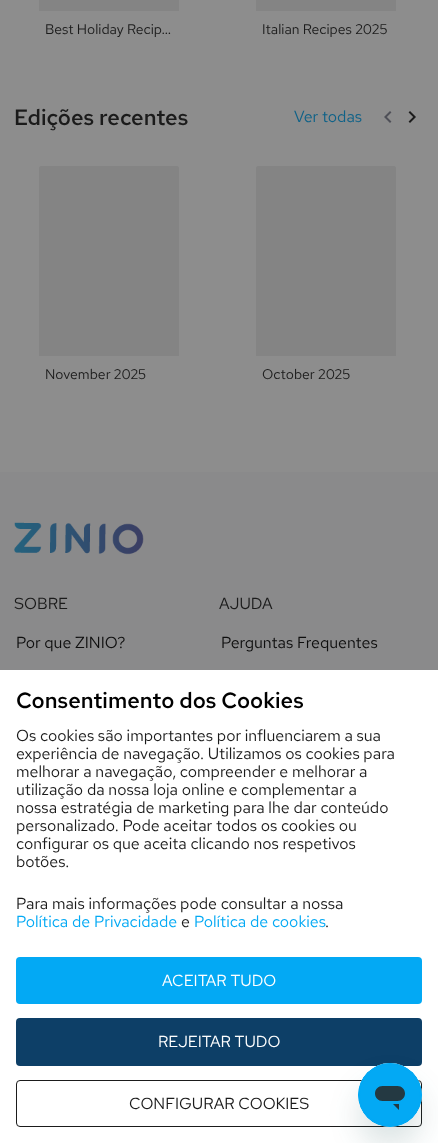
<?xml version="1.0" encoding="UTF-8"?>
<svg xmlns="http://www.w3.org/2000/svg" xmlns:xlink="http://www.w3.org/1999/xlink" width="438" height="1143">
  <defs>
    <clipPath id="clip1"><rect x="39" y="166" width="140" height="190" /></clipPath>
    <clipPath id="clip2"><rect x="256" y="166" width="140" height="190" /></clipPath>
  </defs>
  <rect width="100%" height="100%" fill="#8d8d8d" />
  <rect x="39" width="140" height="11" fill="#848484" />
  <rect x="256" width="140" height="11" fill="#848484" />
  <image x="384" y="111" width="8" height="12" xlink:href="image1.png" />
  <image x="408" y="111" width="8" height="12" xlink:href="image2.png" />
  <g clip-path="url(#clip1)">
    <path d="M 41 166 c -1 0 -2 1 -2 2 v 222 c 0 1 1 2 2 2 h 136 c 1 0 2 -1 2 -2 v -222 c 0 -1 -1 -2 -2 -2 z" fill="#848484" />
  </g>
  <g clip-path="url(#clip2)">
    <path d="M 258 166 c -1 0 -2 1 -2 2 v 222 c 0 1 1 2 2 2 h 136 c 1 0 2 -1 2 -2 v -222 c 0 -1 -1 -2 -2 -2 z" fill="#848484" />
  </g>
  <rect y="472" width="438" height="198" fill="#8a8a8b" />
  <image x="14" y="522" width="130" height="33" xlink:href="image3.png" />
  <rect y="670" width="438" height="473" fill="#ffffff" />
  <rect x="16" y="957" width="406" height="47" rx="4" fill="#03a9f4" />
  <rect x="16" y="1018" width="406" height="48" rx="4" fill="#0d3f67" />
  <rect x="16.5" y="1080.5" width="405" height="46" rx="3.5" fill="none" stroke="#1b1b1b" />
  <rect x="358" y="1083" width="64" height="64" rx="32" fill="#17494d" fill-opacity="0.15" filter="blur(15px)" />
  <image x="358" y="1063" width="64" height="64" xlink:href="image4.png" />
  <text x="45" y="34" style="font-family: Red Hat Text; font-size: 14px; fill: #1b1b1b">Best Holiday Recip…</text>
  <text x="262" y="34" style="font-family: Red Hat Text; font-size: 14px; fill: #1b1b1b">Italian Recipes 2025</text>
  <text x="14" y="125" style="font-family: Red Hat Text; font-size: 22px; font-weight: 600; fill: #1b1b1b">Edições recentes</text>
  <text x="294" y="122" style="font-family: Red Hat Text; font-size: 16px; fill: #0f6288">Ver todas</text>
  <text x="45" y="379" style="font-family: Red Hat Text; font-size: 14px; fill: #1b1b1b">November 2025</text>
  <text x="262" y="379" style="font-family: Red Hat Text; font-size: 14px; fill: #1b1b1b">October 2025</text>
  <text x="14" y="609" style="font-family: Red Hat Text; font-size: 16px; fill: #1b1b1b">SOBRE</text>
  <text x="16" y="648" style="font-family: Red Hat Text; font-size: 16px; fill: #0e0e0e">Por que ZINIO?</text>
  <text x="219" y="609" style="font-family: Red Hat Text; font-size: 16px; fill: #1b1b1b">AJUDA</text>
  <text x="221" y="648" style="font-family: Red Hat Text; font-size: 16px; fill: #0e0e0e">Perguntas Frequentes</text>
  <text x="16" y="708" style="font-family: Red Hat Text; font-size: 22px; font-weight: 600; fill: #000000">Consentimento dos Cookies</text>
  <text x="16" y="741" style="font-family: Red Hat Text; font-size: 16px; fill: #1b1b1b">Os cookies são importantes por influenciarem a sua</text>
  <text x="16" y="759" style="font-family: Red Hat Text; font-size: 16px; fill: #1b1b1b">experiência de navegação. Utilizamos os cookies para</text>
  <text x="16" y="777" style="font-family: Red Hat Text; font-size: 16px; fill: #1b1b1b">melhorar a navegação, compreender e melhorar a</text>
  <text x="16" y="795" style="font-family: Red Hat Text; font-size: 16px; fill: #1b1b1b">utilização da nossa loja online e complementar a</text>
  <text x="16" y="813" style="font-family: Red Hat Text; font-size: 16px; fill: #1b1b1b">nossa estratégia de marketing para lhe dar conteúdo</text>
  <text x="16" y="831" style="font-family: Red Hat Text; font-size: 16px; fill: #1b1b1b">personalizado. Pode aceitar todos os cookies ou</text>
  <text x="16" y="849" style="font-family: Red Hat Text; font-size: 16px; fill: #1b1b1b">configurar os que aceita clicando nos respetivos</text>
  <text x="16" y="867" style="font-family: Red Hat Text; font-size: 16px; fill: #1b1b1b">botões.</text>
  <text x="16" y="909" style="font-family: Red Hat Text; font-size: 16px; fill: #1b1b1b">Para mais informações pode consultar a nossa</text>
  <text x="16" y="927" style="font-family: Red Hat Text; font-size: 16px; fill: #03a9f4">Política de Privacidade</text>
  <text x="181" y="927" style="font-family: Red Hat Text; font-size: 16px; fill: #1b1b1b">e</text>
  <text x="194" y="927" style="font-family: Red Hat Text; font-size: 16px; fill: #03a9f4">Política de cookies</text>
  <text x="325" y="927" style="font-family: Red Hat Text; font-size: 16px; fill: #1b1b1b">.</text>
  <text x="162" y="986" style="font-family: Red Hat Text; font-size: 16px; fill: #ffffff">ACEITAR TUDO</text>
  <text x="158" y="1047" style="font-family: Red Hat Text; font-size: 16px; fill: #ffffff">REJEITAR TUDO</text>
  <text x="129" y="1109" style="font-family: Red Hat Text; font-size: 16px; fill: #1b1b1b">CONFIGURAR COOKIES</text>
</svg>
